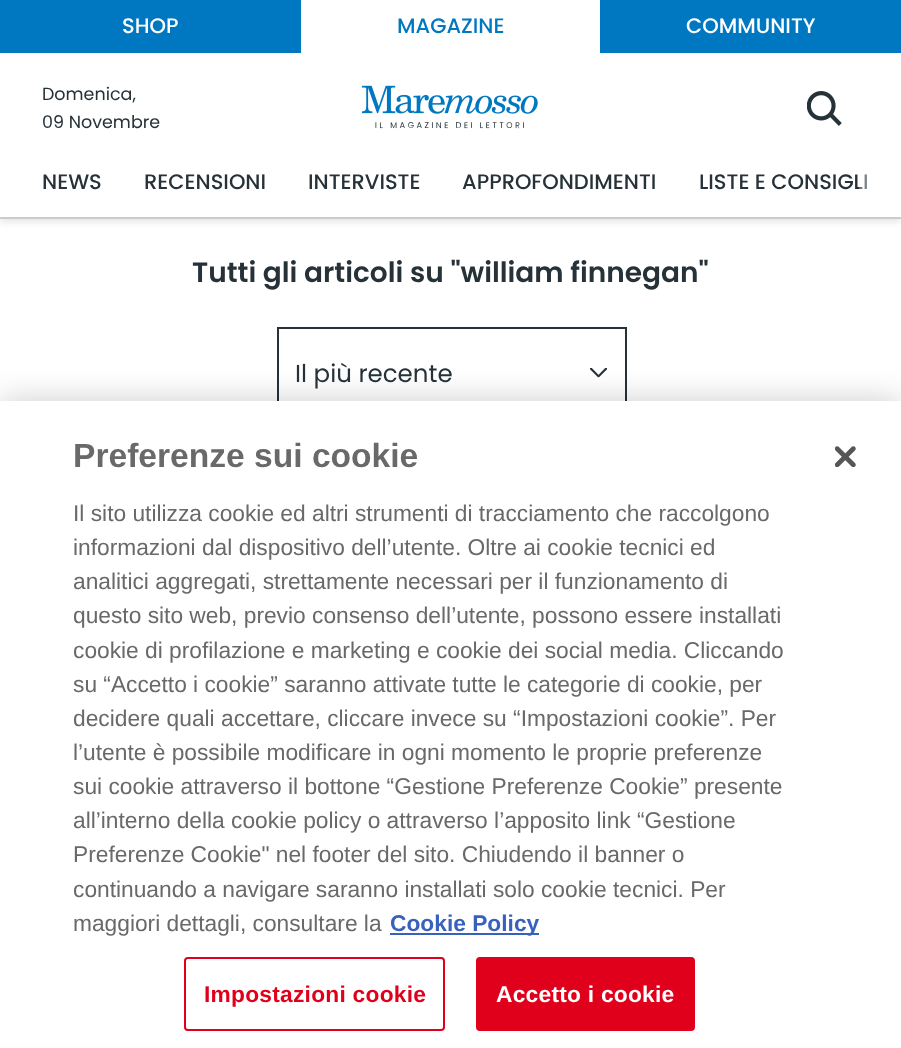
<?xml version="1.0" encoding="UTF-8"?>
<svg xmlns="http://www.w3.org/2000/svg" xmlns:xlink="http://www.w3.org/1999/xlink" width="901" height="1048">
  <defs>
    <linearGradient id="g1" gradientUnits="userSpaceOnUse" x1="859" y1="182" x2="901" y2="182"><stop offset="0" stop-color="#ffffff" stop-opacity="0.3" /><stop offset="1" stop-color="#ffffff" /></linearGradient>
  </defs>
  <rect width="100%" height="100%" fill="#ffffff" />
  <rect y="4" width="901" height="218" fill="#000000" fill-opacity="0.1" filter="blur(3.5px)" />
  <rect y="53" width="901" height="164" fill="#ffffff" />
  <rect width="901" height="53" fill="#0078c1" />
  <rect x="301" width="299" height="53" fill="#ffffff" />
  <image x="361" y="85" width="177" height="44" xlink:href="image1.png" />
  <image x="807" y="91" width="35" height="35" xlink:href="image2.png" />
  <rect y="217" width="901" height="2" fill="#cccccc" />
  <rect x="278" y="328" width="348" height="89" fill="none" stroke="#263238" stroke-width="2" />
  <image x="590" y="368" width="17" height="10" xlink:href="image3.png" />
  <rect y="401" width="901" height="647" fill="#000000" fill-opacity="0.2" filter="blur(16px)" />
  <rect y="401" width="901" height="647" fill="#ffffff" />
  <rect x="390" y="933" width="149" height="2" fill="#3860be" />
  <rect x="185" y="958" width="259" height="72" rx="3" fill="none" stroke="#e1001b" stroke-width="2" />
  <rect x="477" y="958" width="217" height="72" rx="3" fill="#e1001b" stroke="#e1001b" stroke-width="2" />
  <image x="835" y="446" width="21" height="21" xlink:href="image4.png" />
  <text x="122" y="33" style="font-family: Poppins; font-size: 21px; font-weight: 500; fill: #ffffff">SHOP</text>
  <text x="397" y="33" style="font-family: Poppins; font-size: 21px; font-weight: 500; fill: #0078c1">MAGAZINE</text>
  <text x="686" y="33" style="font-family: Poppins; font-size: 21px; font-weight: 500; fill: #ffffff">COMMUNITY</text>
  <text x="42" y="100" style="font-family: Poppins; font-size: 17.5px; fill: #263238">Domenica,</text>
  <text x="42" y="128" style="font-family: Poppins; font-size: 17.5px; fill: #263238">09 Novembre</text>
  <text x="42" y="189" style="font-family: Poppins; font-size: 21px; font-weight: 500; fill: #263238">NEWS</text>
  <text x="144" y="189" style="font-family: Poppins; font-size: 21px; font-weight: 500; fill: #263238">RECENSIONI</text>
  <text x="308" y="189" style="font-family: Poppins; font-size: 21px; font-weight: 500; fill: #263238">INTERVISTE</text>
  <text x="462" y="189" style="font-family: Poppins; font-size: 21px; font-weight: 500; fill: #263238">APPROFONDIMENTI</text>
  <text x="699" y="189" style="font-family: Poppins; font-size: 21px; font-weight: 500; fill: #263238">LISTE E CONSIGLI</text>
  <rect x="859" y="174" width="8" height="15" fill="url(#g1)" />
  <text x="192" y="282" style="font-family: Poppins; font-size: 28px; font-weight: 600; fill: #263238">Tutti gli articoli su "william finnegan"</text>
  <text x="295" y="382" style="font-family: Poppins; font-size: 24.5px; fill: #263238">Il più recente</text>
  <text x="73" y="467" style="font-family: Liberation Sans; font-size: 33.6px; font-weight: bold; fill: #696969">Preferenze sui cookie</text>
  <text x="73" y="521" style="font-family: Liberation Sans; font-size: 22.75px; fill: #696969">Il sito utilizza cookie ed altri strumenti di tracciamento che raccolgono</text>
  <text x="73" y="555" style="font-family: Liberation Sans; font-size: 22.75px; fill: #696969">informazioni dal dispositivo dell’utente. Oltre ai cookie tecnici ed</text>
  <text x="73" y="589" style="font-family: Liberation Sans; font-size: 22.75px; fill: #696969">analitici aggregati, strettamente necessari per il funzionamento di</text>
  <text x="73" y="623" style="font-family: Liberation Sans; font-size: 22.75px; fill: #696969">questo sito web, previo consenso dell’utente, possono essere installati</text>
  <text x="73" y="658" style="font-family: Liberation Sans; font-size: 22.75px; fill: #696969">cookie di profilazione e marketing e cookie dei social media. Cliccando</text>
  <text x="73" y="692" style="font-family: Liberation Sans; font-size: 22.75px; fill: #696969">su “Accetto i cookie” saranno attivate tutte le categorie di cookie, per</text>
  <text x="73" y="726" style="font-family: Liberation Sans; font-size: 22.75px; fill: #696969">decidere quali accettare, cliccare invece su “Impostazioni cookie”. Per</text>
  <text x="73" y="760" style="font-family: Liberation Sans; font-size: 22.75px; fill: #696969">l’utente è possibile modificare in ogni momento le proprie preferenze</text>
  <text x="73" y="794" style="font-family: Liberation Sans; font-size: 22.75px; fill: #696969">sui cookie attraverso il bottone “Gestione Preferenze Cookie” presente</text>
  <text x="73" y="828" style="font-family: Liberation Sans; font-size: 22.75px; fill: #696969">all’interno della cookie policy o attraverso l’apposito link “Gestione</text>
  <text x="73" y="862" style="font-family: Liberation Sans; font-size: 22.75px; fill: #696969">Preferenze Cookie" nel footer del sito. Chiudendo il banner o</text>
  <text x="73" y="897" style="font-family: Liberation Sans; font-size: 22.75px; fill: #696969">continuando a navigare saranno installati solo cookie tecnici. Per</text>
  <text x="73" y="931" style="font-family: Liberation Sans; font-size: 22.75px; fill: #696969">maggiori dettagli, consultare la</text>
  <text x="390" y="931" style="font-family: Liberation Sans; font-size: 22.75px; font-weight: bold; fill: #3860be">Cookie Policy</text>
  <text x="204" y="1002" style="font-family: Liberation Sans; font-size: 22.75px; font-weight: bold; letter-spacing: 0.25px; fill: #e1001b">Impostazioni cookie</text>
  <text x="496" y="1002" style="font-family: Liberation Sans; font-size: 22.75px; font-weight: bold; letter-spacing: 0.25px; fill: #ffffff">Accetto i cookie</text>
</svg>
